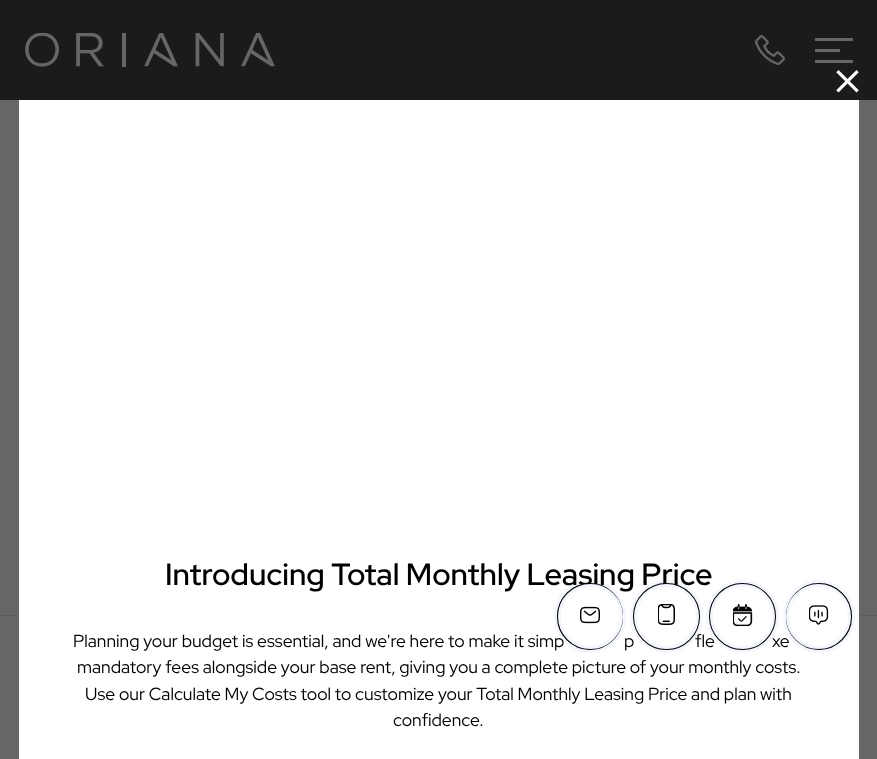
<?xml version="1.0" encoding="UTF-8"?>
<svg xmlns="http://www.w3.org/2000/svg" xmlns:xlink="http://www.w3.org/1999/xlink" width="877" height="759">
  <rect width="100%" height="100%" fill="#666666" />
  <rect width="877" height="100" fill="#1b1b1b" />
  <image x="25" y="33" width="250" height="34" xlink:href="image1.png" />
  <image x="755" y="35" width="30" height="30" xlink:href="image2.png" />
  <rect x="815" y="38" width="38" height="3" fill="#666666" />
  <rect x="815" y="49" width="25" height="3" fill="#666666" />
  <rect x="815" y="60" width="38" height="3" fill="#666666" />
  <rect y="615" width="877" height="1" fill="#5c5c5c" />
  <rect x="19" y="100" width="840" height="659" fill="#ffffff" />
  <image x="836" y="70" width="23" height="23" xlink:href="image3.png" />
  <rect x="555.5" y="581.5" width="69" height="70" rx="34.5" fill="#000000" stroke="#f3f6fc" stroke-width="3" />
  <circle cx="666.5" cy="616.5" r="35" fill="#000000" stroke="#f3f6fc" stroke-width="3" />
  <circle cx="742.5" cy="616.5" r="35" fill="#000000" stroke="#f3f6fc" stroke-width="3" />
  <rect x="784.5" y="581.5" width="69" height="70" rx="34.5" fill="#000000" stroke="#f3f6fc" stroke-width="3" />
  <text x="165" y="585" style="font-family: Red Hat Display; font-size: 30.6px; font-weight: 600; fill: #000000">Introducing Total Monthly Leasing Price</text>
  <text x="73" y="647" style="font-family: Red Hat Display; font-size: 17.5px; fill: #000000">Planning your budget is essential, and we're here to make it simp</text>
  <text x="624" y="647" style="font-family: Red Hat Display; font-size: 17.5px; fill: #000000">p</text>
  <text x="695" y="647" style="font-family: Red Hat Display; font-size: 17.5px; fill: #000000">fle</text>
  <text x="772" y="647" style="font-family: Red Hat Display; font-size: 17.5px; fill: #000000">xe</text>
  <text x="77" y="673" style="font-family: Red Hat Display; font-size: 17.5px; fill: #000000">mandatory fees alongside your base rent, giving you a complete picture of your monthly costs.</text>
  <text x="85" y="700" style="font-family: Red Hat Display; font-size: 17.5px; fill: #000000">Use our Calculate My Costs tool to customize your Total Monthly Leasing Price and plan with</text>
  <text x="393" y="726" style="font-family: Red Hat Display; font-size: 17.5px; fill: #000000">confidence.</text>
  <circle cx="590.5" cy="616.5" r="31" fill="#ffffff" stroke="#f3f6fc" stroke-width="3" />
  <image x="580" y="606" width="20" height="18" xlink:href="image4.png" />
  <circle cx="666.5" cy="616.5" r="31" fill="#ffffff" stroke="#f3f6fc" stroke-width="3" />
  <image x="658" y="604" width="17" height="21" xlink:href="image5.png" />
  <circle cx="742.5" cy="616.5" r="31" fill="#ffffff" stroke="#f3f6fc" stroke-width="3" />
  <image x="733" y="604" width="20" height="22" xlink:href="image6.png" />
  <circle cx="818.5" cy="616.5" r="31" fill="#ffffff" stroke="#f3f6fc" stroke-width="3" />
  <image x="809" y="605" width="20" height="20" xlink:href="image7.png" />
</svg>
